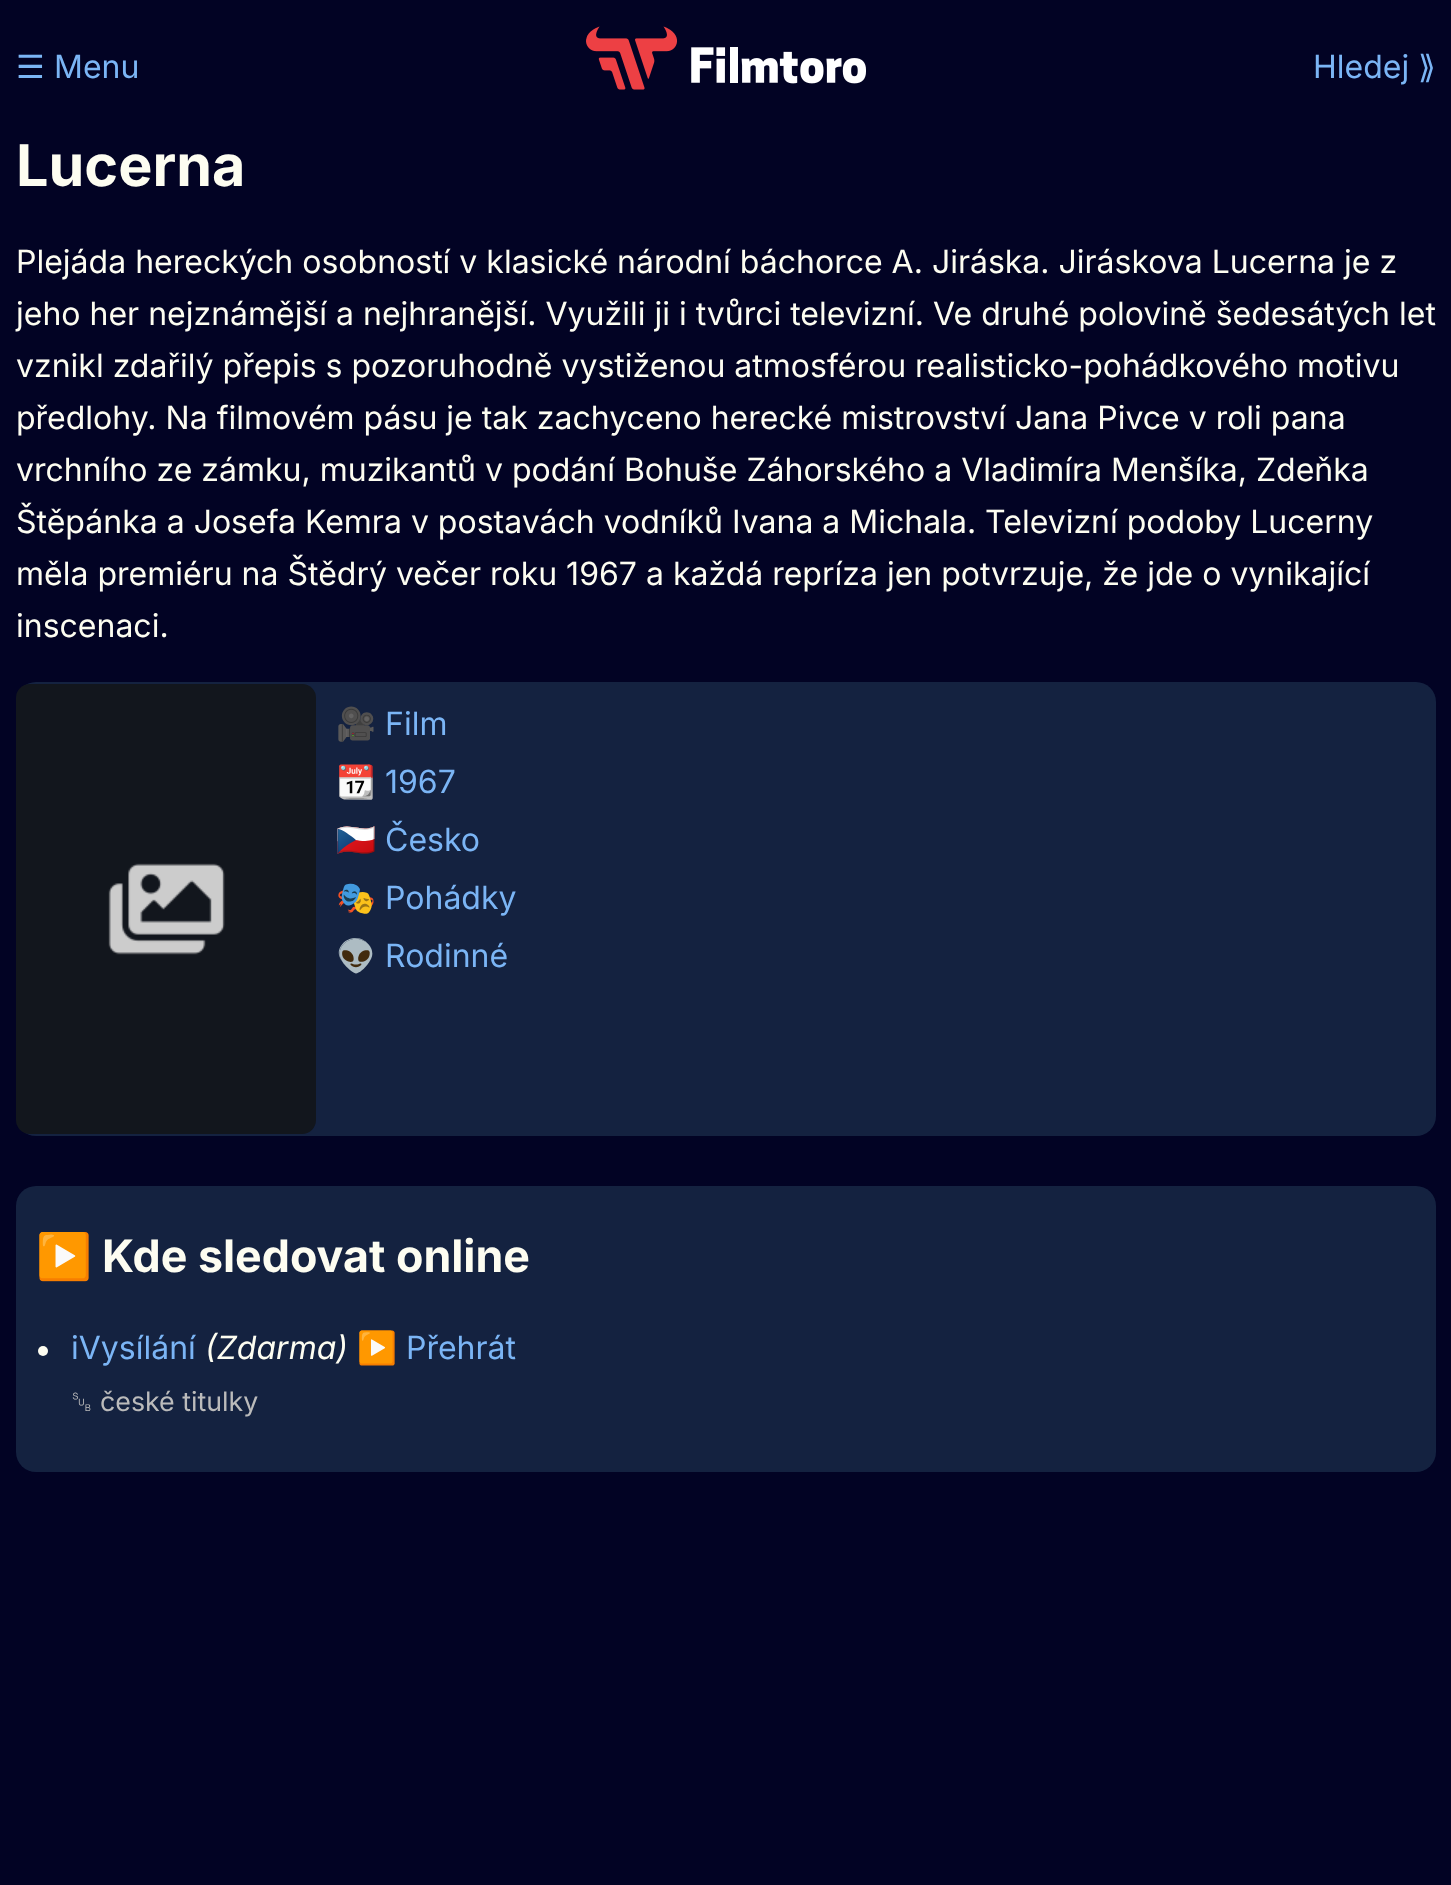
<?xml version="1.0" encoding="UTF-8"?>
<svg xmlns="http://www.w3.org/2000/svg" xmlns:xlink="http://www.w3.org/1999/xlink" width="1451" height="1885">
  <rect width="100%" height="100%" fill="#020324" />
  <image x="586" y="26" width="280" height="64" xlink:href="image1.png" />
  <rect x="16" y="682" width="1420" height="454" rx="20" fill="#142240" />
  <image x="16" y="684" width="300" height="450" xlink:href="image2.png" />
  <rect x="16" y="1186" width="1420" height="286" rx="20" fill="#142240" />
  <circle cx="43" cy="1351" r="5" fill="#fdfdf1" />
  <text x="16" y="78" style="font-family: DejaVu Sans; font-size: 32px; fill: #7bb5f5">☰</text>
  <text x="54" y="78" style="font-family: Inter; font-size: 32px; fill: #7bb5f5">Menu</text>
  <text x="1313" y="78" style="font-family: Inter; font-size: 32px; fill: #7bb5f5">Hledej</text>
  <text x="1418" y="78" style="font-family: DejaVu Sans; font-size: 32px; fill: #7bb5f5">⟫</text>
  <text x="16" y="186" style="font-family: Inter; font-size: 57.5px; font-weight: bold; fill: #fdfdf1">Lucerna</text>
  <text x="16" y="273" style="font-family: Inter; font-size: 32px; fill: #fdfdf1">Plejáda hereckých osobností v klasické národní báchorce A. Jiráska. Jiráskova Lucerna je z</text>
  <text x="16" y="325" style="font-family: Inter; font-size: 32px; fill: #fdfdf1">jeho her nejznámější a nejhranější. Využili ji i tvůrci televizní. Ve druhé polovině šedesátých let</text>
  <text x="16" y="377" style="font-family: Inter; font-size: 32px; fill: #fdfdf1">vznikl zdařilý přepis s pozoruhodně vystiženou atmosférou realisticko-pohádkového motivu</text>
  <text x="16" y="429" style="font-family: Inter; font-size: 32px; fill: #fdfdf1">předlohy. Na filmovém pásu je tak zachyceno herecké mistrovství Jana Pivce v roli pana</text>
  <text x="16" y="481" style="font-family: Inter; font-size: 32px; fill: #fdfdf1">vrchního ze zámku, muzikantů v podání Bohuše Záhorského a Vladimíra Menšíka, Zdeňka</text>
  <text x="16" y="533" style="font-family: Inter; font-size: 32px; fill: #fdfdf1">Štěpánka a Josefa Kemra v postavách vodníků Ivana a Michala. Televizní podoby Lucerny</text>
  <text x="16" y="585" style="font-family: Inter; font-size: 32px; fill: #fdfdf1">měla premiéru na Štědrý večer roku 1967 a každá repríza jen potvrzuje, že jde o vynikající</text>
  <text x="16" y="637" style="font-family: Inter; font-size: 32px; fill: #fdfdf1">inscenaci.</text>
  <text x="336" y="735" style="font-family: Noto Color Emoji; font-size: 32px; fill: #fdfdf1">🎥</text>
  <text x="385" y="735" style="font-family: Inter; font-size: 32px; fill: #7bb5f5">Film</text>
  <text x="336" y="793" style="font-family: Noto Color Emoji; font-size: 32px; fill: #fdfdf1">📆</text>
  <text x="385" y="793" style="font-family: Inter; font-size: 32px; fill: #7bb5f5">1967</text>
  <text x="336" y="851" style="font-family: Noto Color Emoji; font-size: 32px; fill: #fdfdf1">🇨🇿</text>
  <text x="385" y="851" style="font-family: Inter; font-size: 32px; fill: #7bb5f5">Česko</text>
  <text x="336" y="909" style="font-family: Noto Color Emoji; font-size: 32px; fill: #fdfdf1">🎭</text>
  <text x="385" y="909" style="font-family: Inter; font-size: 32px; fill: #7bb5f5">Pohádky</text>
  <text x="336" y="967" style="font-family: Noto Color Emoji; font-size: 32px; fill: #fdfdf1">👽</text>
  <text x="385" y="967" style="font-family: Inter; font-size: 32px; fill: #7bb5f5">Rodinné</text>
  <text x="36" y="1272" style="font-family: Noto Color Emoji; font-size: 44.75px; font-weight: bold; fill: #fdfdf1">▶️</text>
  <text x="102" y="1272" style="font-family: Inter; font-size: 44.75px; font-weight: bold; fill: #fdfdf1">Kde sledovat online</text>
  <text x="71" y="1359" style="font-family: Inter; font-size: 32px; fill: #7bb5f5">iVysílání</text>
  <text x="205" y="1359" style="font-family: Inter; font-size: 32px; font-style: italic; fill: #fdfdf1">(Zdarma)</text>
  <text x="357" y="1359" style="font-family: Noto Color Emoji; font-size: 32px; fill: #7bb5f5">▶️</text>
  <text x="406" y="1359" style="font-family: Inter; font-size: 32px; fill: #7bb5f5">Přehrát</text>
  <text x="71" y="1411" style="font-family: FreeSans; font-size: 26.75px; fill: #bbbbbb">␚</text>
  <text x="100" y="1411" style="font-family: Inter; font-size: 26.75px; fill: #bbbbbb">české titulky</text>
</svg>
